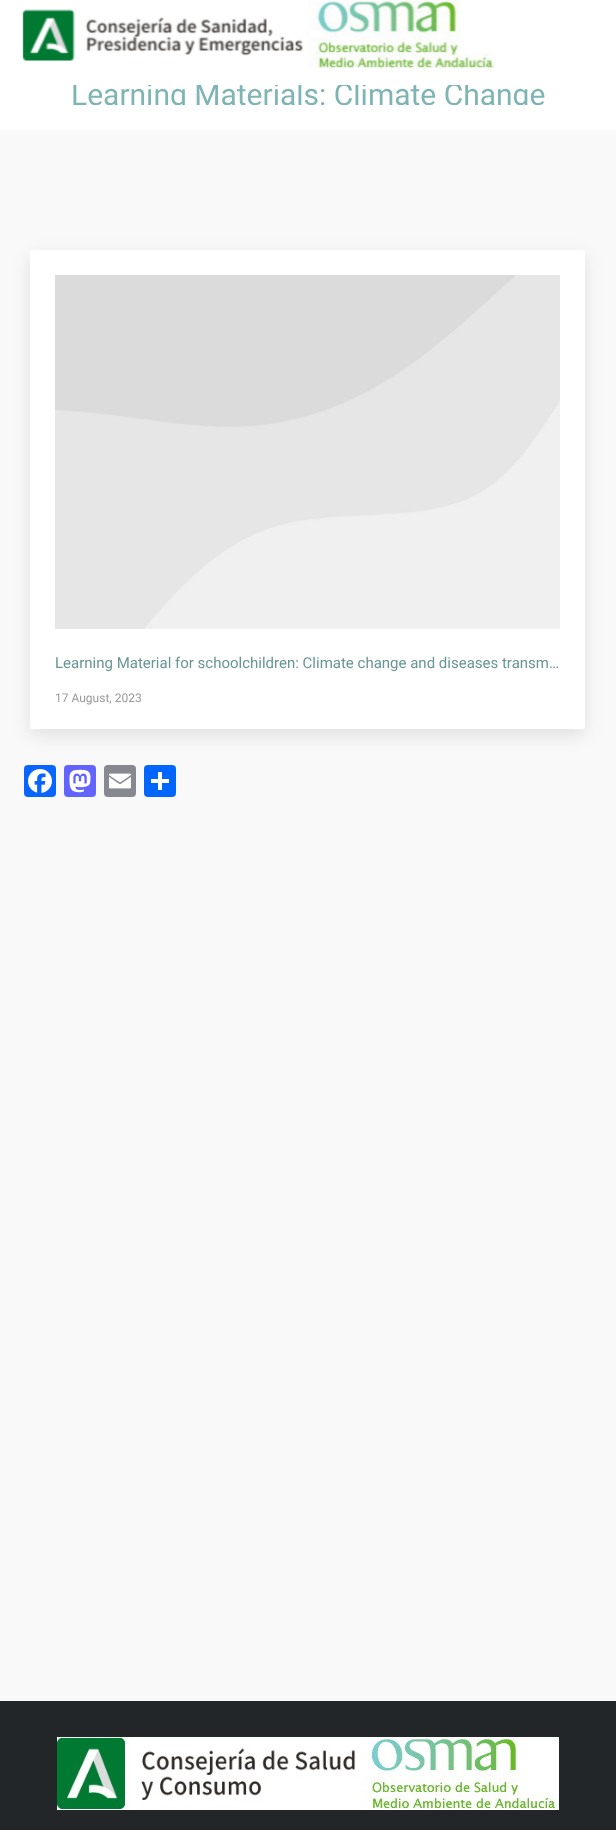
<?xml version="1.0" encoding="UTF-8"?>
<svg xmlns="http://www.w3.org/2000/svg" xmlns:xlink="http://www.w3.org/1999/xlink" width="616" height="1830">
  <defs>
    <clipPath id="clip1"><rect x="71" y="85" width="474" height="20" /></clipPath>
  </defs>
  <rect width="100%" height="100%" fill="#232629" />
  <rect width="616" height="130" fill="#ffffff" />
  <image x="22" y="0" width="474" height="68" xlink:href="image1.png" />
  <rect y="130" width="616" height="1571" fill="#f9f9f9" />
  <rect x="30" y="256" width="555" height="479" rx="2" fill="#000000" fill-opacity="0.1" filter="blur(9px)" />
  <rect x="30" y="250" width="555" height="479" rx="2" fill="#ffffff" />
  <image x="55" y="275" width="505" height="354" xlink:href="image2.png" />
  <rect x="24" y="765" width="32" height="32" rx="4" fill="#0866ff" />
  <image x="28" y="769" width="24" height="24" xlink:href="image3.png" />
  <rect x="64" y="765" width="32" height="32" rx="4" fill="#6364ff" />
  <image x="69" y="769" width="22" height="24" xlink:href="image4.png" />
  <rect x="104" y="765" width="32" height="32" rx="4" fill="#888990" />
  <image x="109" y="773" width="22" height="16" xlink:href="image5.png" />
  <rect x="144" y="765" width="32" height="32" rx="4" fill="#0166ff" />
  <rect x="158" y="772" width="4" height="18" fill="#ffffff" />
  <rect x="151" y="779" width="18" height="4" fill="#ffffff" />
  <image x="57" y="1737" width="502" height="73" xlink:href="image6.png" />
  <g clip-path="url(#clip1)">
    <text x="71" y="105" style="font-family: Roboto; font-size: 30px; fill: #7fb4b5">Learning Materials: Climate Change</text>
  </g>
  <text x="55" y="668" style="font-family: Roboto; font-size: 15px; fill: #679694">Learning Material for schoolchildren: Climate change and diseases transm…</text>
  <text x="55" y="702" style="font-family: Roboto; font-size: 12px; fill: #999999">17 August, 2023</text>
</svg>
